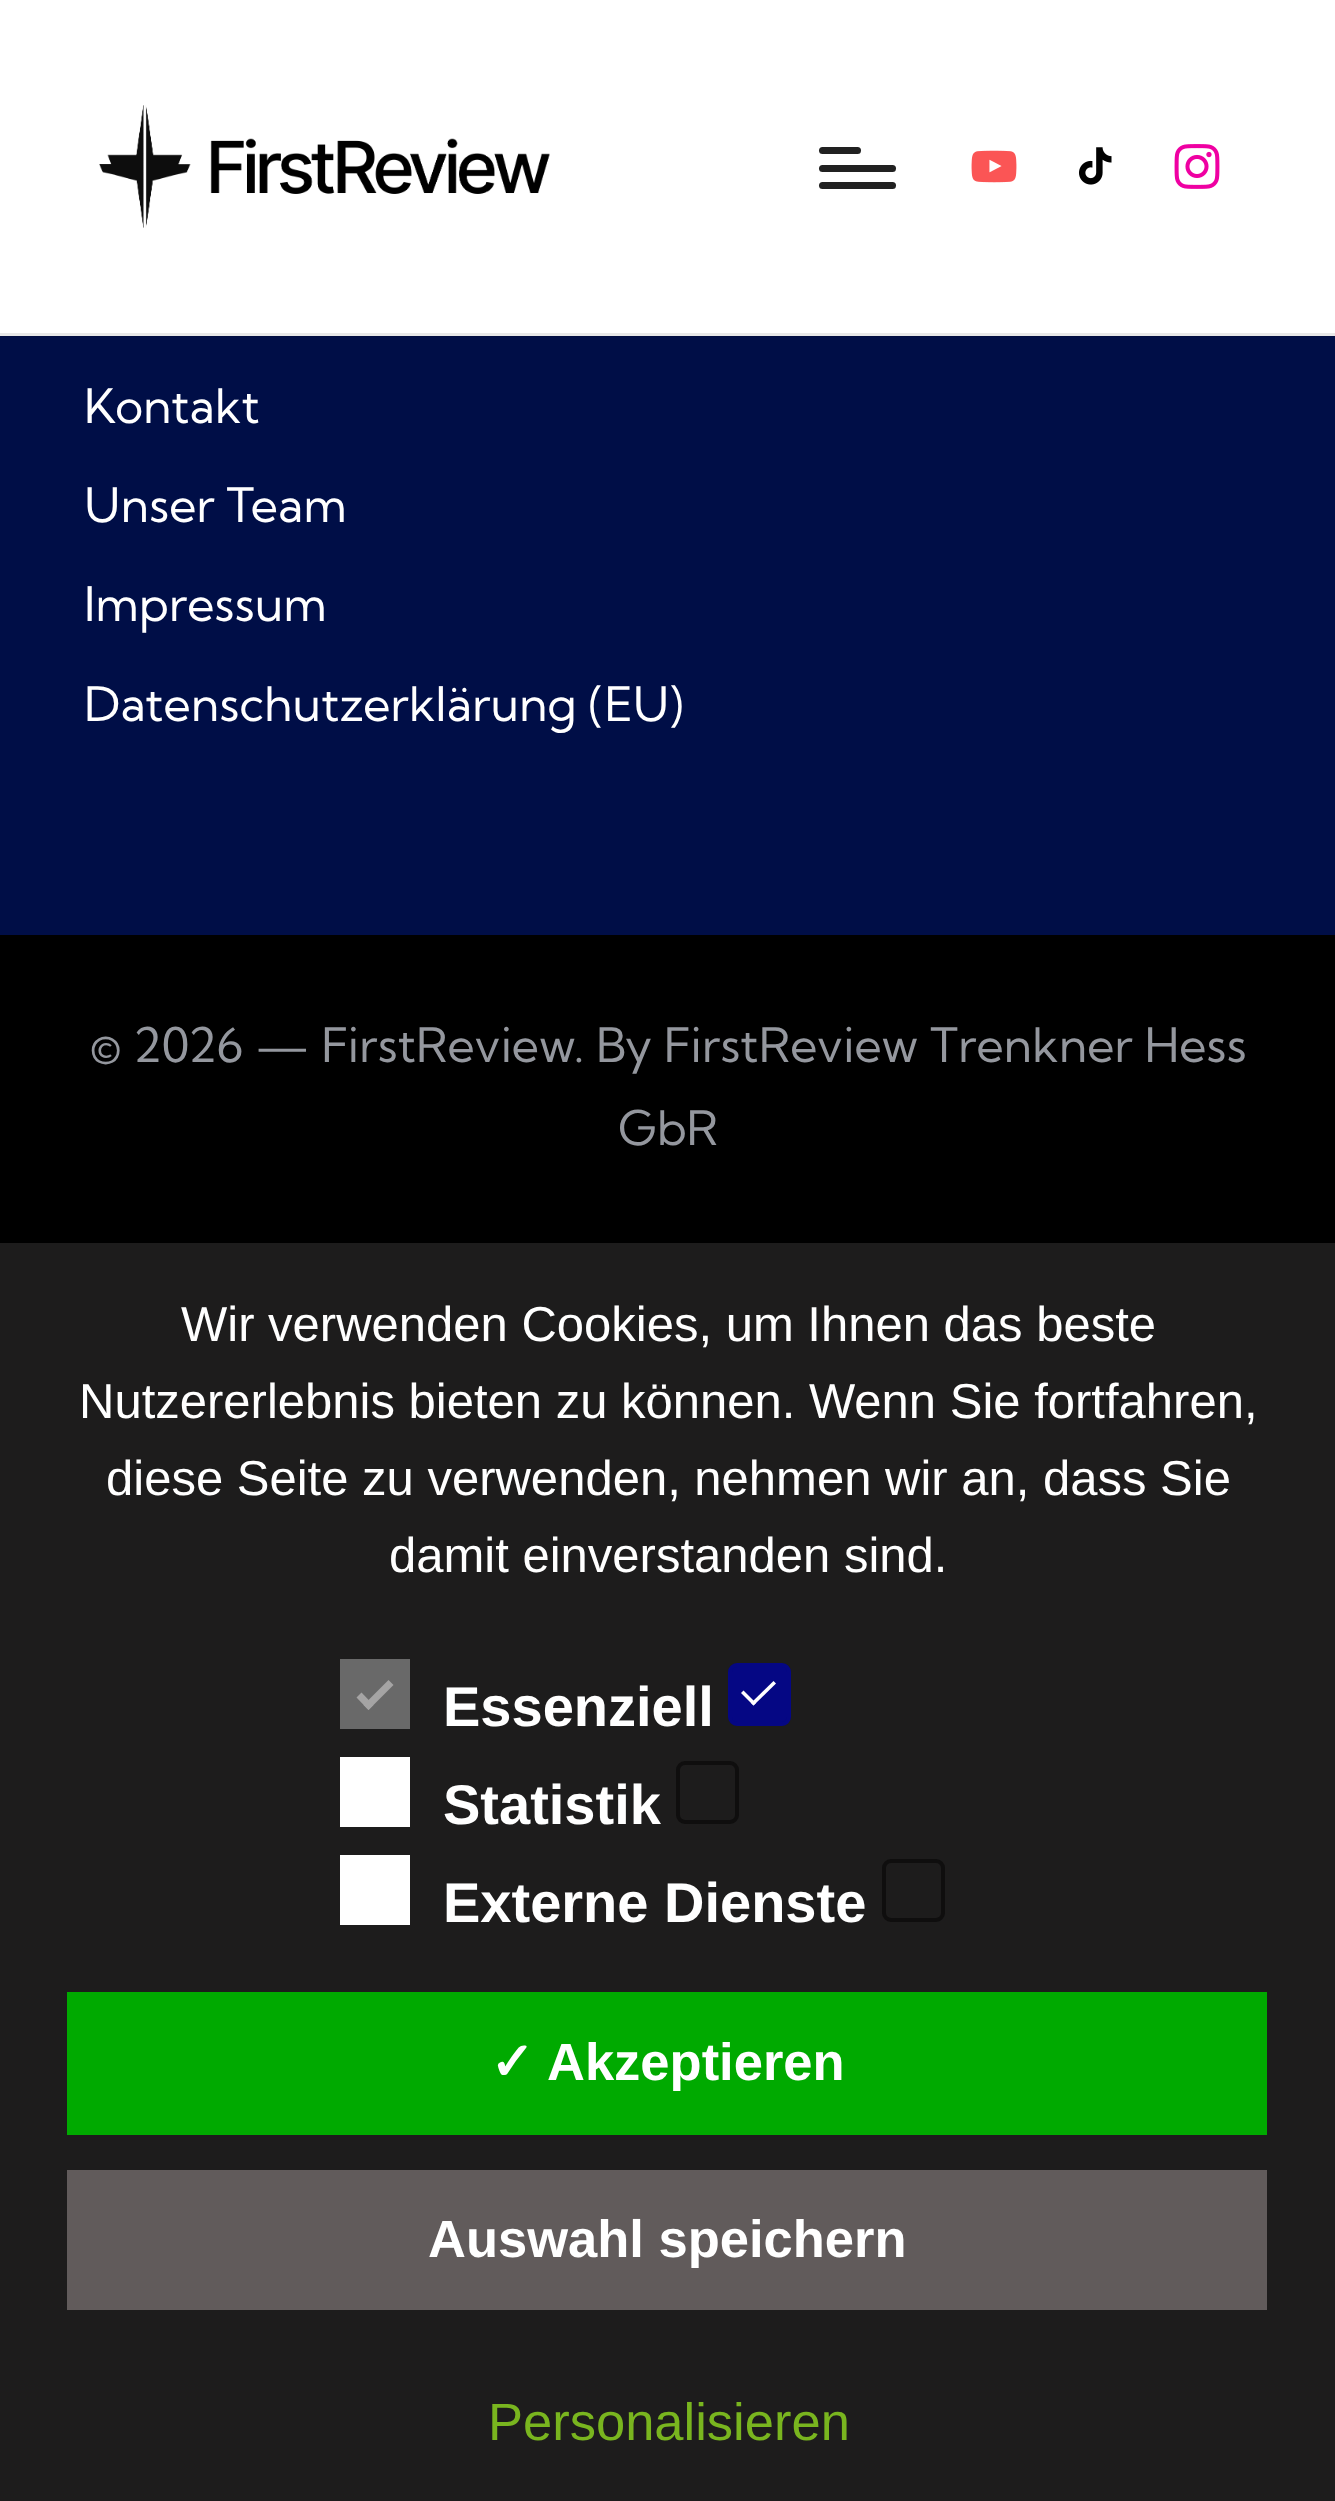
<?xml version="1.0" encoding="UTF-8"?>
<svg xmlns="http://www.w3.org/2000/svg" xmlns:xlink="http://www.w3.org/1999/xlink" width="1335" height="2501">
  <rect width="100%" height="100%" fill="#000e47" />
  <rect width="1335" height="336" fill="#ffffff" />
  <rect y="333" width="1335" height="4" fill="#000000" fill-opacity="0.09" />
  <image x="99" y="105" width="451" height="123" xlink:href="image1.png" />
  <rect x="819" y="165" width="77" height="7" rx="3.5" fill="#212121" />
  <rect x="819" y="147" width="42" height="7" rx="3.5" fill="#212121" />
  <rect x="819" y="182" width="77" height="7" rx="3.5" fill="#212121" />
  <image x="971" y="150" width="46" height="33" xlink:href="image2.png" />
  <image x="1079" y="147" width="33" height="38" xlink:href="image3.png" />
  <image x="1174" y="144" width="46" height="45" xlink:href="image4.png" />
  <rect y="935" width="1335" height="308" fill="#000000" />
  <rect y="1243" width="1335" height="1258" fill="#1d1c1c" />
  <rect x="340" y="1659" width="70" height="70" fill="#696969" />
  <path d="M 388.5 1680 l 5 5 l -25 25 l -5 -5 z" fill="#a5a4a4" />
  <path d="M 361.5 1692.5 l 12 12.5 l -5 5 l -12 -12.5 z" fill="#a5a4a4" />
  <rect x="730" y="1665" width="59" height="59" rx="7" fill="#050784" stroke="#050784" stroke-width="4" />
  <path d="M 773.5 1681 l 2.5 2.5 l -22.5 22 l -2.5 -2.5 z" fill="#ffffff" />
  <path d="M 743.5 1690.5 l 12.5 12.5 l -2.5 2.5 l -12.5 -12.5 z" fill="#ffffff" />
  <rect x="340" y="1757" width="70" height="70" fill="#ffffff" />
  <rect x="678" y="1763" width="59" height="59" rx="7" fill="none" stroke="#0f0e0e" stroke-width="4" />
  <rect x="340" y="1855" width="70" height="70" fill="#ffffff" />
  <rect x="884" y="1861" width="59" height="59" rx="7" fill="none" stroke="#0f0e0e" stroke-width="4" />
  <rect x="67" y="1992" width="1200" height="143" fill="#00aa00" />
  <rect x="67" y="2170" width="1200" height="140" fill="#615b5b" />
  <text x="84" y="423" style="font-family: Kumbh Sans; font-size: 47.6px; fill: #ffffff">Kontakt</text>
  <text x="84" y="522" style="font-family: Kumbh Sans; font-size: 47.6px; fill: #ffffff">Unser Team</text>
  <text x="84" y="621" style="font-family: Kumbh Sans; font-size: 47.6px; fill: #ffffff">Impressum</text>
  <text x="84" y="721" style="font-family: Kumbh Sans; font-size: 47.6px; fill: #ffffff">Datenschutzerklärung (EU)</text>
  <text x="90" y="1062" style="font-family: Kumbh Sans; font-size: 47.6px; fill: #94979e">© 2026 — FirstReview. By FirstReview Trenkner Hess</text>
  <text x="618" y="1145" style="font-family: Kumbh Sans; font-size: 47.6px; fill: #94979e">GbR</text>
  <text x="181" y="1341" style="font-family: Liberation Sans; font-size: 49px; fill: #ffffff">Wir verwenden Cookies, um Ihnen das beste</text>
  <text x="79" y="1418" style="font-family: Liberation Sans; font-size: 49px; fill: #ffffff">Nutzererlebnis bieten zu können. Wenn Sie fortfahren,</text>
  <text x="106" y="1495" style="font-family: Liberation Sans; font-size: 49px; fill: #ffffff">diese Seite zu verwenden, nehmen wir an, dass Sie</text>
  <text x="389" y="1572" style="font-family: Liberation Sans; font-size: 49px; fill: #ffffff">damit einverstanden sind.</text>
  <text x="443" y="1726" style="font-family: Liberation Sans; font-size: 56px; font-weight: bold; fill: #ffffff">Essenziell</text>
  <text x="443" y="1824" style="font-family: Liberation Sans; font-size: 56px; font-weight: bold; fill: #ffffff">Statistik</text>
  <text x="443" y="1922" style="font-family: Liberation Sans; font-size: 56px; font-weight: bold; fill: #ffffff">Externe Dienste</text>
  <text x="490" y="2080" style="font-family: DejaVu Sans; font-size: 52.5px; font-weight: bold; fill: #ffffff">✓</text>
  <text x="547" y="2080" style="font-family: Liberation Sans; font-size: 52.5px; font-weight: bold; fill: #ffffff">Akzeptieren</text>
  <text x="428" y="2257" style="font-family: Liberation Sans; font-size: 52.5px; font-weight: bold; fill: #ffffff">Auswahl speichern</text>
  <text x="488" y="2440" style="font-family: Liberation Sans; font-size: 52.5px; fill: #79b51f">Personalisieren</text>
</svg>
